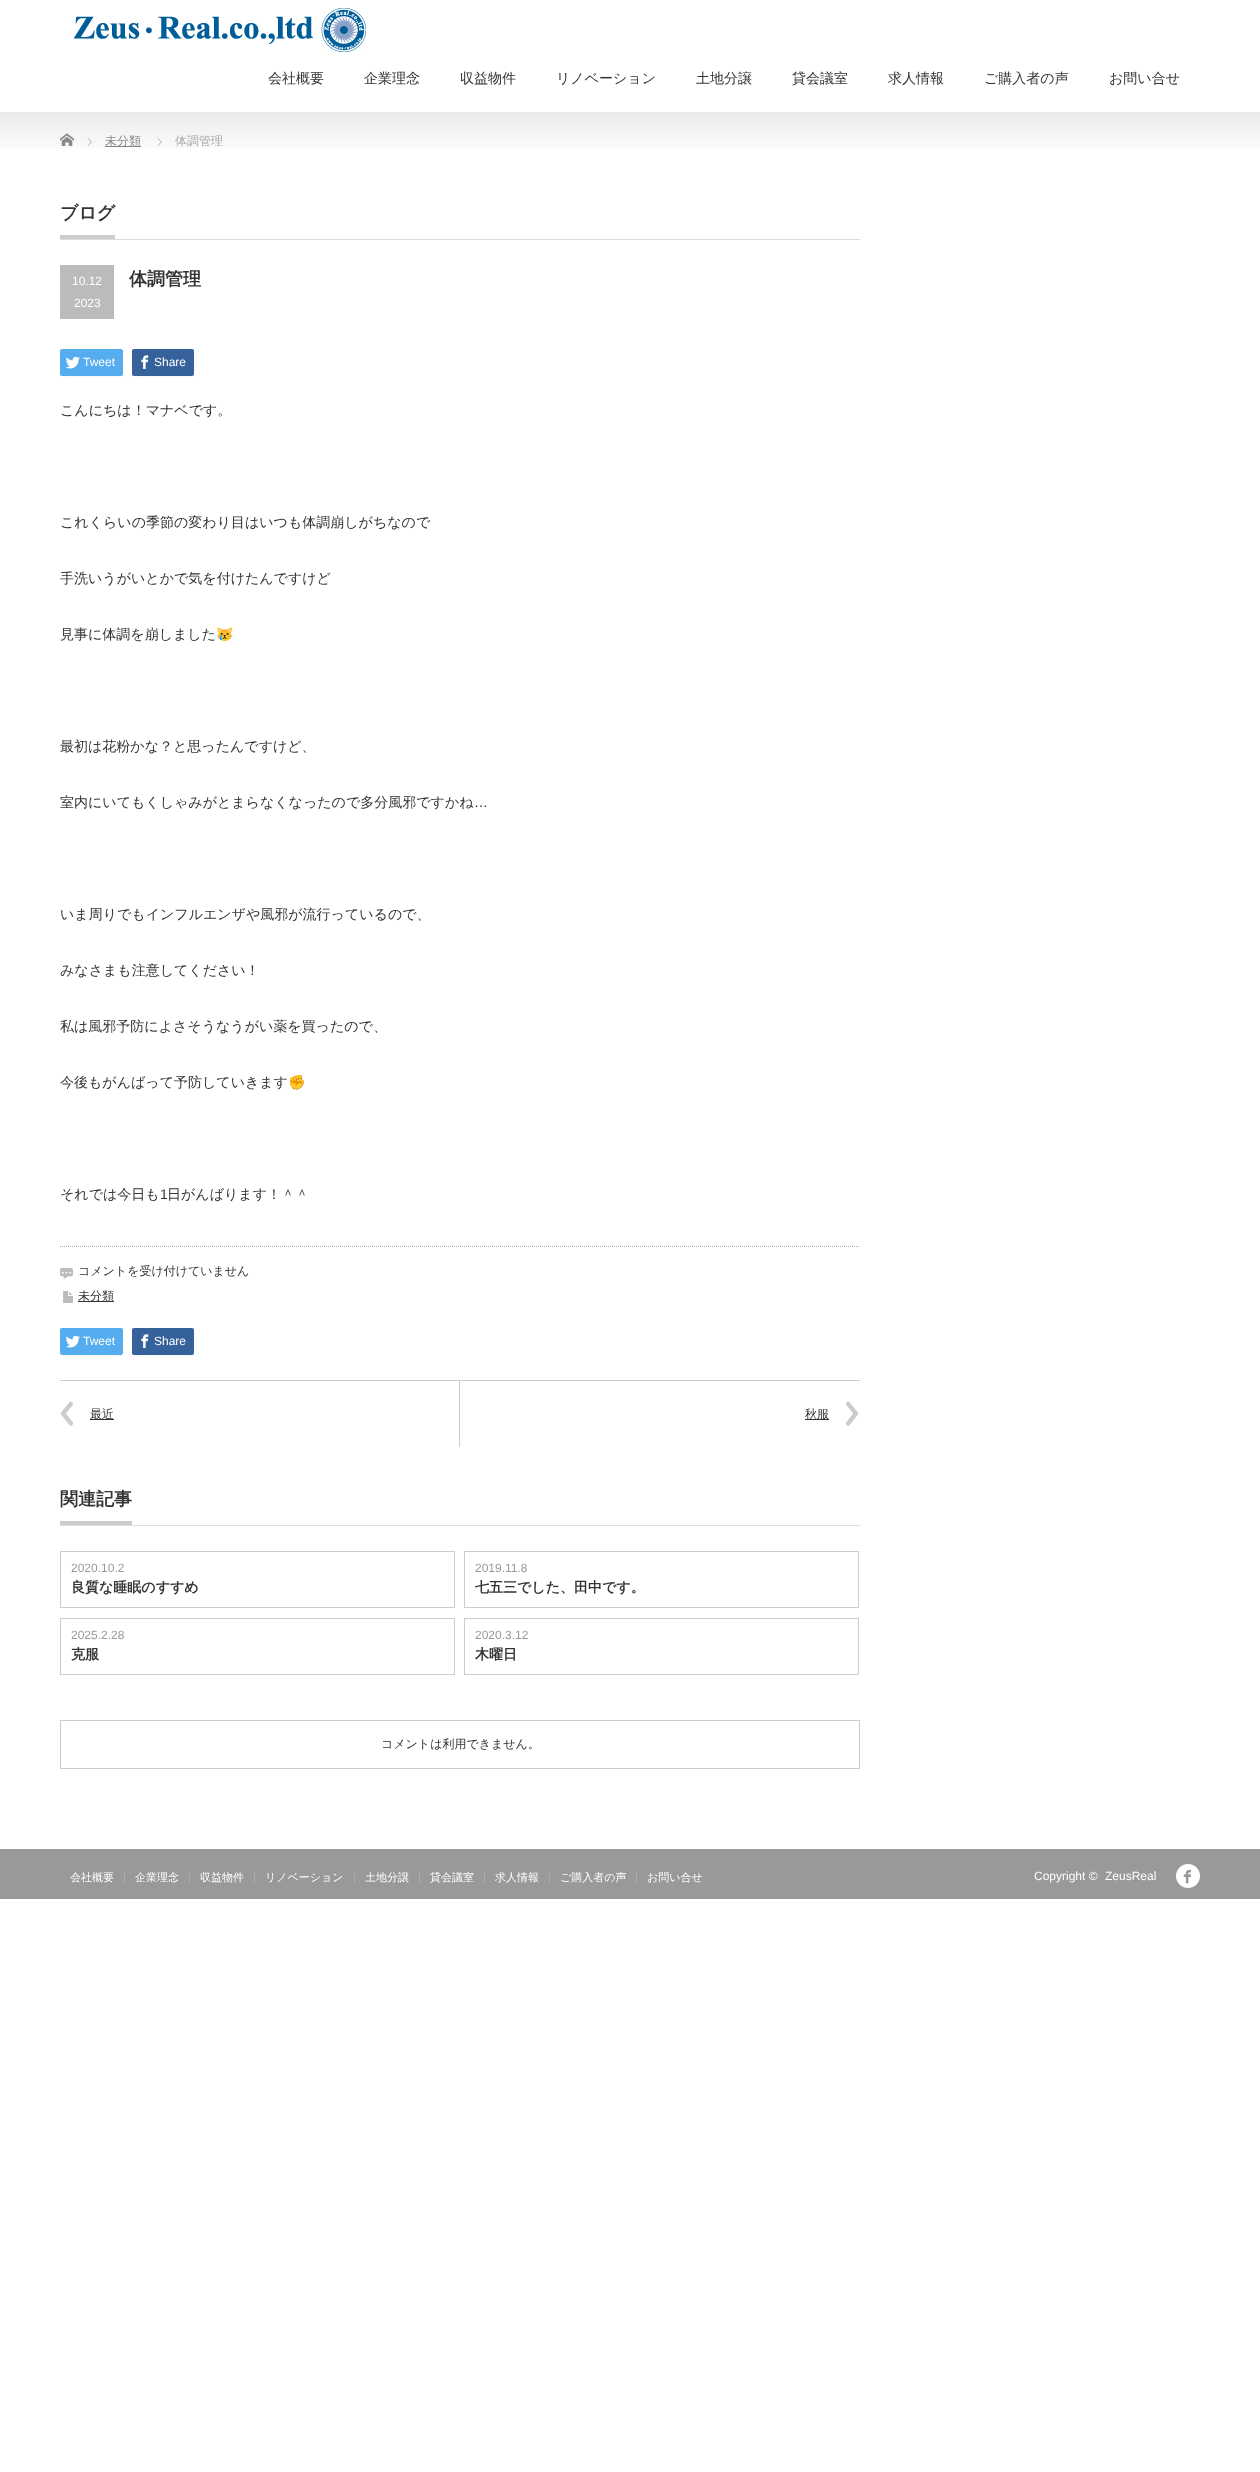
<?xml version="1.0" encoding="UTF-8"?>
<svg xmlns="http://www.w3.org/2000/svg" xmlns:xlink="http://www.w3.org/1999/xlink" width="1260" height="2472">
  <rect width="100%" height="100%" fill="#ffffff" />
  <image x="71" y="8" width="295" height="45" xlink:href="image1.png" />
  <image x="0" y="112" width="1260" height="36" xlink:href="image2.png" />
  <image x="60" y="133" width="14" height="13" xlink:href="image3.png" />
  <image x="87" y="138" width="5" height="8" xlink:href="image4.png" />
  <rect x="105" y="146" width="36" height="1" fill="#888888" />
  <image x="157" y="138" width="5" height="8" xlink:href="image4.png" />
  <rect x="60" y="239" width="800" height="1" fill="#dddddd" />
  <rect x="60" y="235" width="55" height="4" fill="#cccccc" />
  <rect x="60" y="265" width="54" height="54" fill="#bbbbbb" />
  <path d="M 60 374 c 0 6 8 3 12 3 h 39 c 4 0 12 3 12 -3 l -1 2 h -50 c -4 0 -12 2 -12 -2 z" fill="#f7f7f7" />
  <rect x="60" y="349" width="63" height="27" rx="2" fill="#55acee" />
  <image x="65" y="356" width="15" height="13" xlink:href="image5.png" />
  <path d="M 132 374 c 0 6 8 3 12 3 h 38 c 4 0 12 3 12 -3 l -1 2 h -49 c -4 0 -12 2 -12 -2 z" fill="#f7f7f7" />
  <rect x="132" y="349" width="62" height="27" rx="2" fill="#35629a" />
  <image x="141" y="355" width="8" height="14" xlink:href="image6.png" />
  <path d="M 60 1246.5 h 800" fill="none" stroke="#aaaaaa" stroke-dasharray="1 1" />
  <image x="60" y="1268" width="13" height="11" xlink:href="image7.png" />
  <image x="63" y="1291" width="10" height="12" xlink:href="image8.png" />
  <rect x="78" y="1301" width="36" height="1" fill="#333333" />
  <path d="M 60 1353 c 0 6 8 3 12 3 h 39 c 4 0 12 3 12 -3 l -1 2 h -50 c -4 0 -12 2 -12 -2 z" fill="#f7f7f7" />
  <rect x="60" y="1328" width="63" height="27" rx="2" fill="#55acee" />
  <image x="65" y="1335" width="15" height="13" xlink:href="image5.png" />
  <path d="M 132 1353 c 0 6 8 3 12 3 h 38 c 4 0 12 3 12 -3 l -1 2 h -49 c -4 0 -12 2 -12 -2 z" fill="#f7f7f7" />
  <rect x="132" y="1328" width="62" height="27" rx="2" fill="#35629a" />
  <image x="141" y="1334" width="8" height="14" xlink:href="image6.png" />
  <rect x="60" y="1380" width="800" height="1" fill="#cccccc" />
  <image x="60" y="1401" width="13" height="25" xlink:href="image9.png" />
  <rect x="459" y="1381" width="1" height="66" fill="#cccccc" />
  <rect x="90" y="1419" width="24" height="1" fill="#333333" />
  <image x="846" y="1401" width="13" height="25" xlink:href="image10.png" />
  <rect x="805" y="1419" width="24" height="1" fill="#333333" />
  <rect x="60" y="1525" width="800" height="1" fill="#dddddd" />
  <rect x="60" y="1521" width="72" height="4" fill="#cccccc" />
  <rect x="60.5" y="1551.5" width="394" height="56" fill="none" stroke="#cccccc" />
  <rect x="464.5" y="1551.5" width="394" height="56" fill="none" stroke="#cccccc" />
  <rect x="60.5" y="1618.5" width="394" height="56" fill="none" stroke="#cccccc" />
  <rect x="464.5" y="1618.5" width="394" height="56" fill="none" stroke="#cccccc" />
  <rect x="60.5" y="1720.5" width="799" height="48" fill="none" stroke="#cccccc" />
  <rect y="1849" width="1260" height="50" fill="#999999" />
  <rect x="124" y="1871" width="1" height="12" fill="#aaaaaa" />
  <rect x="189" y="1871" width="1" height="12" fill="#aaaaaa" />
  <rect x="254" y="1871" width="1" height="12" fill="#aaaaaa" />
  <rect x="354" y="1871" width="1" height="12" fill="#aaaaaa" />
  <rect x="419" y="1871" width="1" height="12" fill="#aaaaaa" />
  <rect x="484" y="1871" width="1" height="12" fill="#aaaaaa" />
  <rect x="549" y="1871" width="1" height="12" fill="#aaaaaa" />
  <rect x="636" y="1871" width="1" height="12" fill="#aaaaaa" />
  <image x="1176" y="1864" width="24" height="24" xlink:href="image11.png" />
  <text x="268" y="83" style="font-family: WenQuanYi Zen Hei; font-size: 14px; font-weight: 500; fill: #333333">会社概要</text>
  <text x="364" y="83" style="font-family: WenQuanYi Zen Hei; font-size: 14px; font-weight: 500; fill: #333333">企業理念</text>
  <text x="460" y="83" style="font-family: WenQuanYi Zen Hei; font-size: 14px; font-weight: 500; fill: #333333">収益物件</text>
  <text x="556" y="83" style="font-family: WenQuanYi Zen Hei; font-size: 14px; font-weight: 500; fill: #333333">リノベーション</text>
  <text x="696" y="83" style="font-family: WenQuanYi Zen Hei; font-size: 14px; font-weight: 500; fill: #333333">土地分譲</text>
  <text x="792" y="83" style="font-family: WenQuanYi Zen Hei; font-size: 14px; font-weight: 500; fill: #333333">貸会議室</text>
  <text x="888" y="83" style="font-family: WenQuanYi Zen Hei; font-size: 14px; font-weight: 500; fill: #333333">求人情報</text>
  <text x="984" y="83" style="font-family: WenQuanYi Zen Hei; font-size: 14px; font-weight: 500; fill: #333333">ご購入者の声</text>
  <text x="1109" y="83" style="font-family: WenQuanYi Zen Hei; font-size: 14px; font-weight: 500; fill: #333333">お問い合せ</text>
  <text x="105" y="145" style="font-family: WenQuanYi Zen Hei; font-size: 12px; font-weight: 500; fill: #888888">未分類</text>
  <text x="175" y="145" style="font-family: WenQuanYi Zen Hei; font-size: 12px; font-weight: 500; fill: #aaaaaa">体調管理</text>
  <text x="60" y="219" style="font-family: WenQuanYi Zen Hei; font-size: 18px; font-weight: bold; fill: #333333">ブログ</text>
  <text x="72" y="285" style="font-family: Liberation Sans; font-size: 12px; fill: #ffffff">10.12</text>
  <text x="74" y="307" style="font-family: Liberation Sans; font-size: 12px; fill: #ffffff">2023</text>
  <text x="129" y="285" style="font-family: WenQuanYi Zen Hei; font-size: 18px; font-weight: bold; fill: #333333">体調管理</text>
  <text x="83" y="366" style="font-family: Liberation Sans; font-size: 12px; fill: #ffffff">Tweet</text>
  <text x="154" y="366" style="font-family: Liberation Sans; font-size: 12px; fill: #ffffff">Share</text>
  <text x="60" y="415" style="font-family: WenQuanYi Zen Hei; font-size: 14px; font-weight: 500; fill: #333333">こんにちは！マナベです。</text>
  <text x="60" y="527" style="font-family: WenQuanYi Zen Hei; font-size: 14px; font-weight: 500; fill: #333333">これくらいの季節の変わり目はいつも体調崩しがちなので</text>
  <text x="60" y="583" style="font-family: WenQuanYi Zen Hei; font-size: 14px; font-weight: 500; fill: #333333">手洗いうがいとかで気を付けたんですけど</text>
  <text x="60" y="639" style="font-family: WenQuanYi Zen Hei; font-size: 14px; font-weight: 500; fill: #333333">見事に体調を崩しました</text>
  <text x="216" y="639" style="font-family: Noto Color Emoji; font-size: 14px; fill: #333333">😿</text>
  <text x="60" y="751" style="font-family: WenQuanYi Zen Hei; font-size: 14px; font-weight: 500; fill: #333333">最初は花粉かな？と思ったんですけど、</text>
  <text x="60" y="807" style="font-family: WenQuanYi Zen Hei; font-size: 14px; font-weight: 500; fill: #333333">室内にいてもくしゃみがとまらなくなったので多分風邪ですかね</text>
  <text x="474" y="807" style="font-family: Liberation Sans; font-size: 14px; fill: #333333">…</text>
  <text x="60" y="919" style="font-family: WenQuanYi Zen Hei; font-size: 14px; font-weight: 500; fill: #333333">いま周りでもインフルエンザや風邪が流行っているので、</text>
  <text x="60" y="975" style="font-family: WenQuanYi Zen Hei; font-size: 14px; font-weight: 500; fill: #333333">みなさまも注意してください！</text>
  <text x="60" y="1031" style="font-family: WenQuanYi Zen Hei; font-size: 14px; font-weight: 500; fill: #333333">私は風邪予防によさそうなうがい薬を買ったので、</text>
  <text x="60" y="1087" style="font-family: WenQuanYi Zen Hei; font-size: 14px; font-weight: 500; fill: #333333">今後もがんばって予防していきます</text>
  <text x="288" y="1087" style="font-family: Noto Color Emoji; font-size: 14px; fill: #333333">✊</text>
  <text x="60" y="1199" style="font-family: WenQuanYi Zen Hei; font-size: 14px; font-weight: 500; fill: #333333">それでは今日も</text>
  <text x="160" y="1199" style="font-family: Liberation Sans; font-size: 14px; fill: #333333">1</text>
  <text x="167" y="1199" style="font-family: WenQuanYi Zen Hei; font-size: 14px; font-weight: 500; fill: #333333">日がんばります！＾＾</text>
  <text x="78" y="1275" style="font-family: WenQuanYi Zen Hei; font-size: 12px; font-weight: 500; fill: #333333">コメントを受け付けていません</text>
  <text x="78" y="1300" style="font-family: WenQuanYi Zen Hei; font-size: 12px; font-weight: 500; fill: #333333">未分類</text>
  <text x="83" y="1345" style="font-family: Liberation Sans; font-size: 12px; fill: #ffffff">Tweet</text>
  <text x="154" y="1345" style="font-family: Liberation Sans; font-size: 12px; fill: #ffffff">Share</text>
  <text x="90" y="1418" style="font-family: WenQuanYi Zen Hei; font-size: 12px; font-weight: 500; fill: #333333">最近</text>
  <text x="805" y="1418" style="font-family: WenQuanYi Zen Hei; font-size: 12px; font-weight: 500; fill: #333333">秋服</text>
  <text x="60" y="1505" style="font-family: WenQuanYi Zen Hei; font-size: 18px; font-weight: bold; fill: #333333">関連記事</text>
  <text x="71" y="1572" style="font-family: Liberation Sans; font-size: 12px; fill: #999999">2020.10.2</text>
  <text x="71" y="1592" style="font-family: WenQuanYi Zen Hei; font-size: 14px; font-weight: bold; fill: #333333">良質な睡眠のすすめ</text>
  <text x="475" y="1572" style="font-family: Liberation Sans; font-size: 12px; fill: #999999">2019.11.8</text>
  <text x="475" y="1592" style="font-family: WenQuanYi Zen Hei; font-size: 14px; font-weight: bold; fill: #333333">七五三でした、田中です。</text>
  <text x="71" y="1639" style="font-family: Liberation Sans; font-size: 12px; fill: #999999">2025.2.28</text>
  <text x="71" y="1659" style="font-family: WenQuanYi Zen Hei; font-size: 14px; font-weight: bold; fill: #333333">克服</text>
  <text x="475" y="1639" style="font-family: Liberation Sans; font-size: 12px; fill: #999999">2020.3.12</text>
  <text x="475" y="1659" style="font-family: WenQuanYi Zen Hei; font-size: 14px; font-weight: bold; fill: #333333">木曜日</text>
  <text x="381" y="1748" style="font-family: WenQuanYi Zen Hei; font-size: 12px; font-weight: 500; fill: #333333">コメントは利用できません。</text>
  <text x="70" y="1881" style="font-family: WenQuanYi Zen Hei; font-size: 11px; font-weight: 500; fill: #ffffff">会社概要</text>
  <text x="135" y="1881" style="font-family: WenQuanYi Zen Hei; font-size: 11px; font-weight: 500; fill: #ffffff">企業理念</text>
  <text x="200" y="1881" style="font-family: WenQuanYi Zen Hei; font-size: 11px; font-weight: 500; fill: #ffffff">収益物件</text>
  <text x="265" y="1881" style="font-family: WenQuanYi Zen Hei; font-size: 11px; font-weight: 500; fill: #ffffff">リノベーション</text>
  <text x="365" y="1881" style="font-family: WenQuanYi Zen Hei; font-size: 11px; font-weight: 500; fill: #ffffff">土地分譲</text>
  <text x="430" y="1881" style="font-family: WenQuanYi Zen Hei; font-size: 11px; font-weight: 500; fill: #ffffff">貸会議室</text>
  <text x="495" y="1881" style="font-family: WenQuanYi Zen Hei; font-size: 11px; font-weight: 500; fill: #ffffff">求人情報</text>
  <text x="560" y="1881" style="font-family: WenQuanYi Zen Hei; font-size: 11px; font-weight: 500; fill: #ffffff">ご購入者の声</text>
  <text x="647" y="1881" style="font-family: WenQuanYi Zen Hei; font-size: 11px; font-weight: 500; fill: #ffffff">お問い合せ</text>
  <text x="1034" y="1880" style="font-family: Liberation Sans; font-size: 12px; fill: #ffffff">Copyright ©</text>
  <text x="1105" y="1880" style="font-family: Liberation Sans; font-size: 12px; fill: #ffffff">ZeusReal</text>
</svg>
